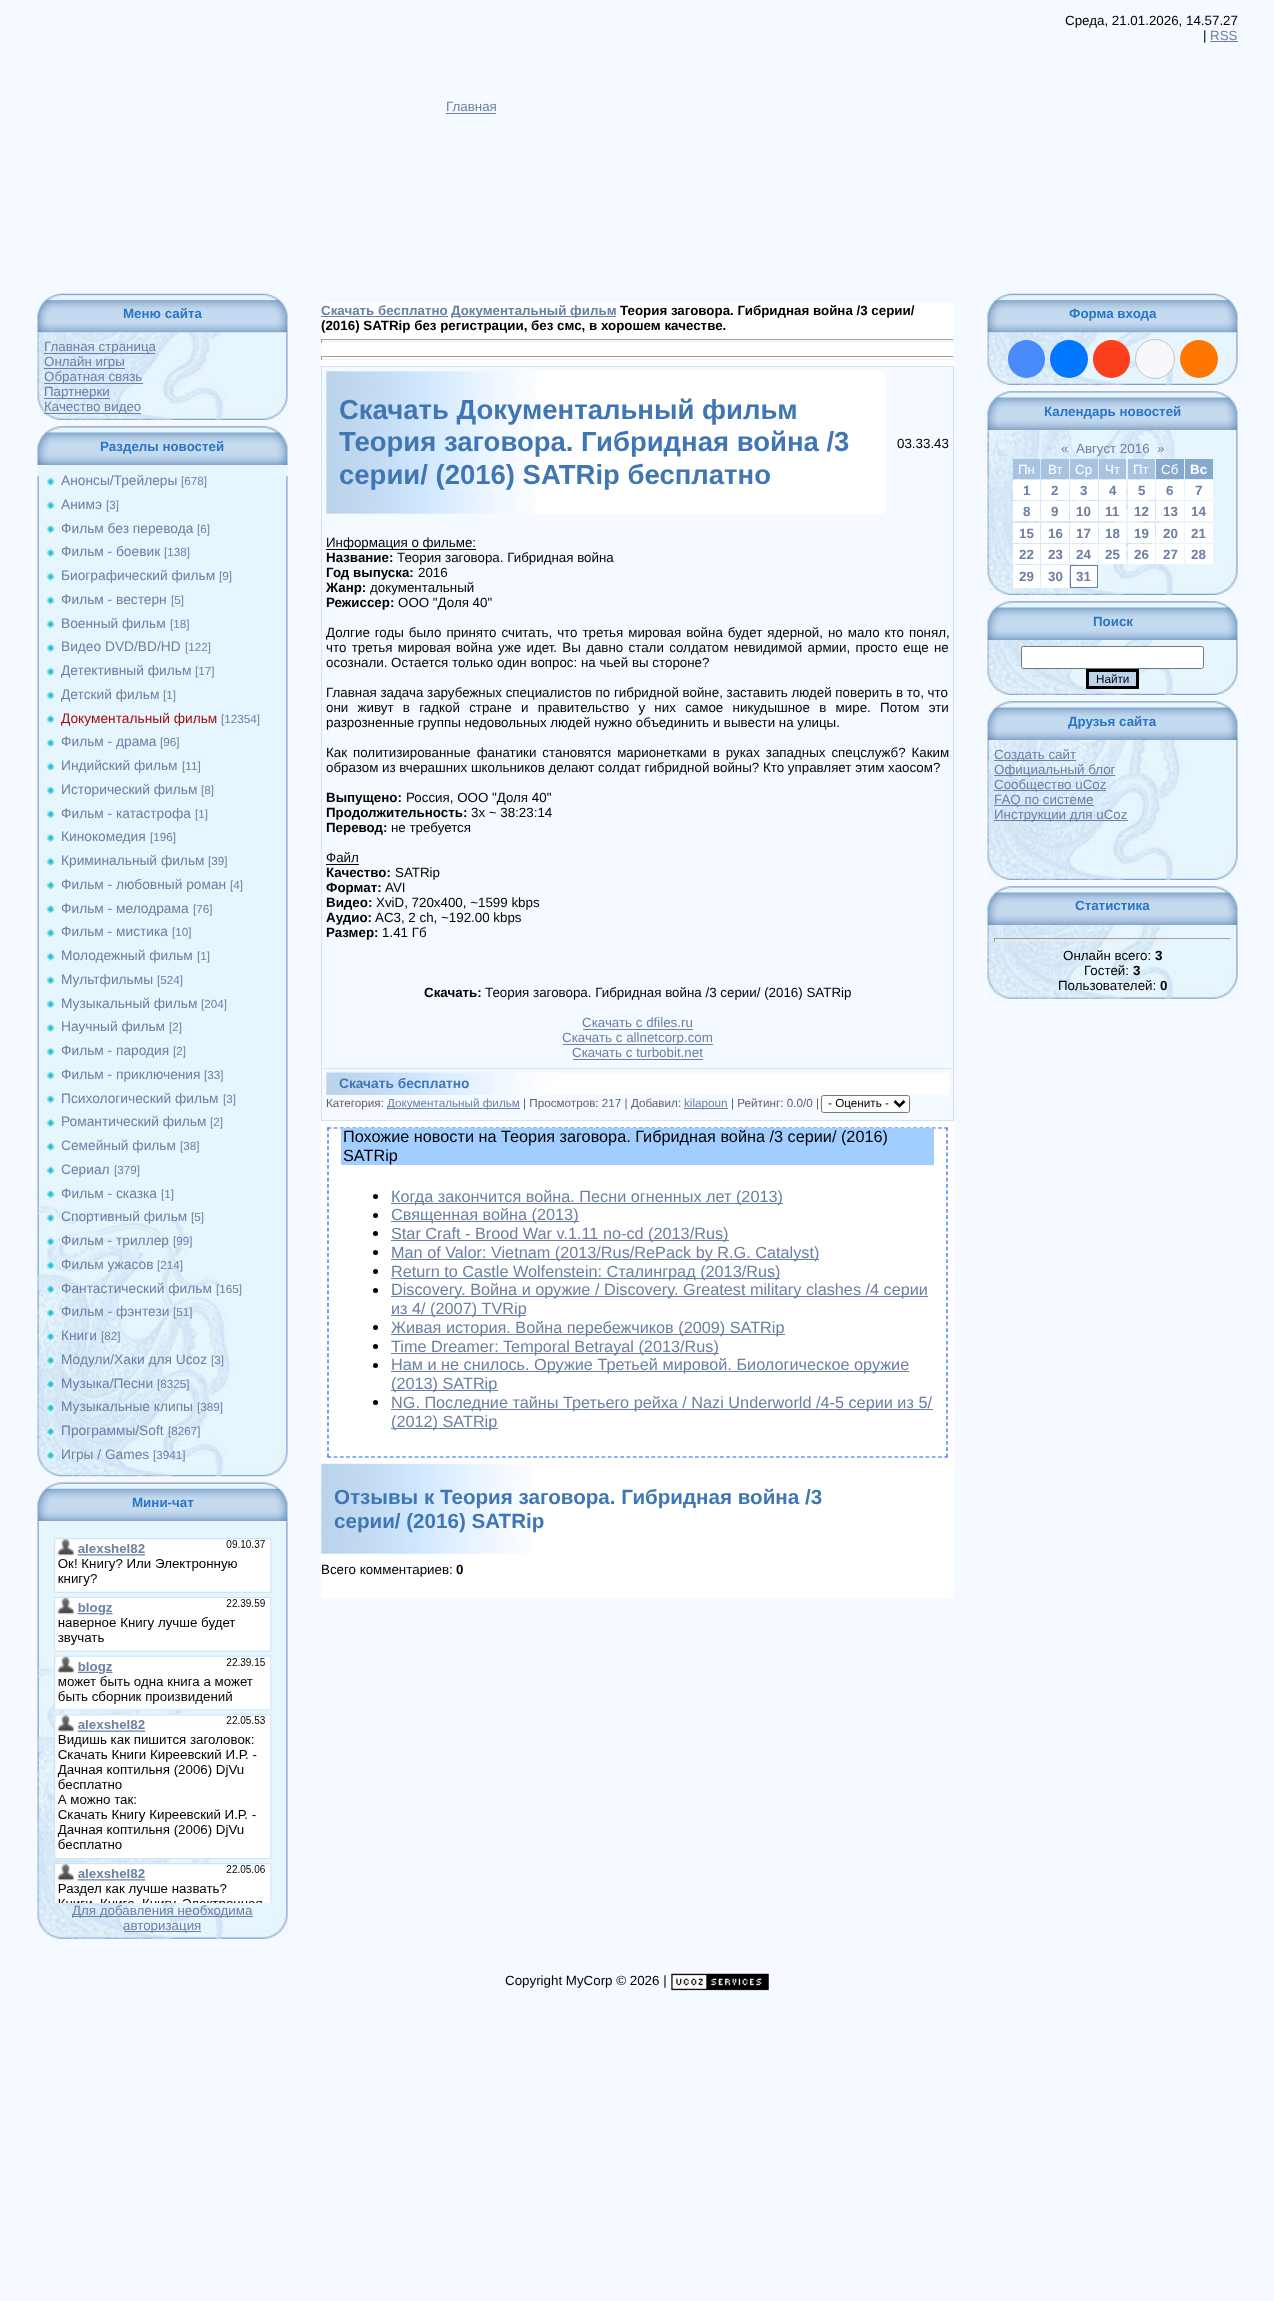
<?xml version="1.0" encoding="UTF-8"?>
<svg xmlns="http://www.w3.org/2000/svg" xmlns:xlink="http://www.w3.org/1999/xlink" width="1274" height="2301">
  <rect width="100%" height="100%" fill="#f4faff" />
  <rect x="1210" y="41" width="28" height="1" fill="#6b80a3" />
  <rect x="446" y="113" width="50" height="1" fill="#6b80a3" />
  <image x="37" y="293" width="251" height="40" xlink:href="image1.png" />
  <rect x="287" y="333" width="1" height="87" fill="#e7f5ff" />
  <image x="37" y="332" width="251" height="88" xlink:href="image2.png" />
  <rect x="44" y="353" width="111" height="1" fill="#6b80a3" />
  <rect x="44" y="368" width="81" height="1" fill="#6b80a3" />
  <rect x="44" y="383" width="99" height="1" fill="#6b80a3" />
  <rect x="44" y="398" width="66" height="1" fill="#6b80a3" />
  <rect x="44" y="413" width="97" height="1" fill="#6b80a3" />
  <image x="37" y="426" width="251" height="39" xlink:href="image3.png" />
  <rect x="38" y="465" width="250" height="1011" fill="#e7f5ff" />
  <image x="37" y="476" width="251" height="1001" xlink:href="image4.png" />
  <image x="45" y="477" width="11" height="11" xlink:href="image5.png" />
  <image x="45" y="501" width="11" height="11" xlink:href="image6.png" />
  <image x="45" y="524" width="11" height="11" xlink:href="image7.png" />
  <image x="45" y="548" width="11" height="11" xlink:href="image8.png" />
  <image x="45" y="572" width="11" height="11" xlink:href="image5.png" />
  <image x="45" y="596" width="11" height="11" xlink:href="image6.png" />
  <image x="45" y="619" width="11" height="11" xlink:href="image7.png" />
  <image x="45" y="643" width="11" height="11" xlink:href="image8.png" />
  <image x="45" y="667" width="11" height="11" xlink:href="image5.png" />
  <image x="45" y="691" width="11" height="11" xlink:href="image6.png" />
  <image x="45" y="714" width="11" height="11" xlink:href="image7.png" />
  <image x="45" y="738" width="11" height="11" xlink:href="image8.png" />
  <image x="45" y="762" width="11" height="11" xlink:href="image5.png" />
  <image x="45" y="786" width="11" height="11" xlink:href="image6.png" />
  <image x="45" y="809" width="11" height="11" xlink:href="image7.png" />
  <image x="45" y="833" width="11" height="11" xlink:href="image8.png" />
  <image x="45" y="857" width="11" height="11" xlink:href="image5.png" />
  <image x="45" y="881" width="11" height="11" xlink:href="image6.png" />
  <image x="45" y="904" width="11" height="11" xlink:href="image7.png" />
  <image x="45" y="928" width="11" height="11" xlink:href="image8.png" />
  <image x="45" y="952" width="11" height="11" xlink:href="image5.png" />
  <image x="45" y="976" width="11" height="11" xlink:href="image6.png" />
  <image x="45" y="999" width="11" height="11" xlink:href="image7.png" />
  <image x="45" y="1023" width="11" height="11" xlink:href="image9.png" />
  <image x="45" y="1047" width="11" height="11" xlink:href="image5.png" />
  <image x="45" y="1071" width="11" height="11" xlink:href="image6.png" />
  <image x="45" y="1094" width="11" height="11" xlink:href="image7.png" />
  <image x="45" y="1118" width="11" height="11" xlink:href="image8.png" />
  <image x="45" y="1142" width="11" height="11" xlink:href="image5.png" />
  <image x="45" y="1166" width="11" height="11" xlink:href="image6.png" />
  <image x="45" y="1189" width="11" height="11" xlink:href="image10.png" />
  <image x="45" y="1212" width="11" height="12" xlink:href="image11.png" />
  <image x="45" y="1237" width="11" height="11" xlink:href="image12.png" />
  <image x="45" y="1260" width="12" height="12" xlink:href="image13.png" />
  <image x="45" y="1284" width="12" height="11" xlink:href="image14.png" />
  <image x="45" y="1308" width="12" height="11" xlink:href="image15.png" />
  <image x="45" y="1331" width="12" height="12" xlink:href="image16.png" />
  <image x="45" y="1355" width="12" height="12" xlink:href="image17.png" />
  <image x="45" y="1379" width="12" height="11" xlink:href="image18.png" />
  <image x="45" y="1402" width="12" height="12" xlink:href="image19.png" />
  <image x="45" y="1426" width="11" height="12" xlink:href="image20.png" />
  <image x="45" y="1450" width="12" height="12" xlink:href="image21.png" />
  <image x="37" y="1482" width="251" height="40" xlink:href="image22.png" />
  <rect x="38" y="1521" width="250" height="418" fill="#e7f5ff" />
  <image x="37" y="1521" width="251" height="418" xlink:href="image23.png" />
  <image x="54" y="1538" width="218" height="365" xlink:href="image24.png" />
  <rect x="73" y="1916" width="180" height="1" fill="#6b80a3" />
  <rect x="124" y="1931" width="77" height="1" fill="#6b80a3" />
  <rect x="321" y="303" width="633" height="1295" fill="#ffffff" />
  <rect x="321" y="316" width="127" height="1" fill="#6b80a3" />
  <rect x="451" y="316" width="165" height="1" fill="#6b80a3" />
  <rect x="321" y="339" width="633" height="1" fill="#9f9f9f" />
  <rect x="953" y="339" width="1" height="4" fill="#eeeeee" />
  <rect x="321" y="341" width="633" height="1" fill="#eeeeee" />
  <rect x="321" y="339" width="1" height="4" fill="#9f9f9f" />
  <rect x="321" y="356" width="633" height="1" fill="#9f9f9f" />
  <rect x="953" y="356" width="1" height="4" fill="#eeeeee" />
  <rect x="321" y="359" width="633" height="1" fill="#eeeeee" />
  <rect x="321" y="356" width="1" height="4" fill="#9f9f9f" />
  <rect x="321.5" y="366.5" width="632" height="754" fill="#f4faff" stroke="#d1e4f5" />
  <rect x="326" y="371" width="559" height="143" fill="#ffffff" />
  <image x="326" y="371" width="211" height="143" xlink:href="image25.png" />
  <rect x="326" y="549" width="150" height="1" fill="#000000" />
  <rect x="326" y="864" width="33" height="1" fill="#000000" />
  <rect x="583" y="1029" width="110" height="1" fill="#6b80a3" />
  <rect x="563" y="1044" width="150" height="1" fill="#6b80a3" />
  <rect x="573" y="1059" width="130" height="1" fill="#6b80a3" />
  <rect x="324" y="1068" width="627" height="1" fill="#d1e4f5" />
  <rect x="326" y="1073" width="623" height="22" fill="#ffffff" />
  <image x="326" y="1072" width="231" height="23" xlink:href="image26.png" />
  <rect x="388" y="1108" width="132" height="1" fill="#6b80a3" />
  <rect x="684" y="1108" width="44" height="1" fill="#6b80a3" />
  <rect x="821.5" y="1095.5" width="88" height="17" rx="2" fill="#ffffff" stroke="#767676" />
  <path d="M 894.5 1101 l 5 5 l 5 -5" fill="none" stroke="#000000" stroke-width="2.5" />
  <path d="M 327.5 1128 h 620" fill="none" stroke="#1d61ff" stroke-width="1.2" stroke-dasharray="3.75 2.48" />
  <path d="M 947 1127.5 v 330" fill="none" stroke="#1d61ff" stroke-width="1.2" stroke-dasharray="3.75 2.52" />
  <path d="M 327.5 1457 h 620" fill="none" stroke="#1d61ff" stroke-width="1.2" stroke-dasharray="3.75 2.48" />
  <path d="M 328 1127.5 v 330" fill="none" stroke="#1d61ff" stroke-width="1.2" stroke-dasharray="3.75 2.52" />
  <rect x="341" y="1128" width="593" height="37" fill="#a2cdff" />
  <circle cx="375.5" cy="1196.5" r="2.5" fill="#000000" />
  <rect x="391" y="1203" width="392" height="1" fill="#6b80a3" />
  <circle cx="375.5" cy="1215.5" r="2.5" fill="#000000" />
  <rect x="391" y="1221" width="188" height="1" fill="#6b80a3" />
  <circle cx="375.5" cy="1233.5" r="2.5" fill="#000000" />
  <rect x="391" y="1240" width="338" height="1" fill="#6b80a3" />
  <circle cx="375.5" cy="1252.5" r="2.5" fill="#000000" />
  <rect x="391" y="1259" width="428" height="1" fill="#6b80a3" />
  <circle cx="375.5" cy="1271.5" r="2.5" fill="#000000" />
  <rect x="391" y="1278" width="389" height="1" fill="#6b80a3" />
  <circle cx="375.5" cy="1290.5" r="2.5" fill="#000000" />
  <rect x="391" y="1296" width="537" height="1" fill="#6b80a3" />
  <rect x="391" y="1315" width="135" height="1" fill="#6b80a3" />
  <circle cx="375.5" cy="1327.5" r="2.5" fill="#000000" />
  <rect x="391" y="1334" width="394" height="1" fill="#6b80a3" />
  <circle cx="375.5" cy="1346.5" r="2.5" fill="#000000" />
  <rect x="391" y="1353" width="328" height="1" fill="#6b80a3" />
  <circle cx="375.5" cy="1365.5" r="2.5" fill="#000000" />
  <rect x="391" y="1371" width="518" height="1" fill="#6b80a3" />
  <rect x="391" y="1390" width="107" height="1" fill="#6b80a3" />
  <circle cx="375.5" cy="1402.5" r="2.5" fill="#000000" />
  <rect x="391" y="1409" width="542" height="1" fill="#6b80a3" />
  <rect x="391" y="1428" width="107" height="1" fill="#6b80a3" />
  <image x="321" y="1463" width="211" height="91" xlink:href="image27.png" />
  <image x="987" y="293" width="251" height="40" xlink:href="image28.png" />
  <rect x="1237" y="333" width="1" height="52" fill="#e7f5ff" />
  <image x="987" y="332" width="251" height="53" xlink:href="image29.png" />
  <rect x="1008" y="340" width="37" height="38" rx="18.5" fill="#498bfa" />
  <circle cx="1069" cy="359" r="19" fill="#0077ff" />
  <rect x="1093" y="340" width="37" height="38" rx="18.5" fill="#fc3f1d" />
  <circle cx="1155" cy="359" r="19.5" fill="#f8f8fc" stroke="#c4c4c4" />
  <circle cx="1199" cy="359" r="19" fill="#ff7700" />
  <image x="987" y="391" width="251" height="39" xlink:href="image30.png" />
  <rect x="1237" y="430" width="1" height="165" fill="#e7f5ff" />
  <image x="987" y="430" width="251" height="165" xlink:href="image31.png" />
  <rect x="1013" y="459" width="27" height="20" fill="#a8c3e0" />
  <rect x="1041" y="459" width="28" height="20" fill="#a8c3e0" />
  <rect x="1070" y="459" width="28" height="20" fill="#a8c3e0" />
  <rect x="1099" y="459" width="27" height="20" fill="#a8c3e0" />
  <rect x="1128" y="459" width="27" height="20" fill="#a8c3e0" />
  <rect x="1156" y="459" width="28" height="20" fill="#88a9ce" />
  <rect x="1185" y="459" width="28" height="20" fill="#88a9ce" />
  <rect x="1013" y="480" width="27" height="20" fill="#ffffff" />
  <rect x="1041" y="480" width="28" height="20" fill="#ffffff" />
  <rect x="1070" y="480" width="28" height="20" fill="#ffffff" />
  <rect x="1099" y="480" width="27" height="20" fill="#ffffff" />
  <rect x="1128" y="480" width="27" height="20" fill="#ffffff" />
  <rect x="1156" y="480" width="28" height="20" fill="#ffffff" />
  <rect x="1185" y="480" width="28" height="20" fill="#ffffff" />
  <rect x="1013" y="501" width="27" height="20" fill="#ffffff" />
  <rect x="1041" y="501" width="28" height="20" fill="#ffffff" />
  <rect x="1070" y="501" width="28" height="20" fill="#ffffff" />
  <rect x="1099" y="501" width="27" height="20" fill="#ffffff" />
  <rect x="1128" y="501" width="27" height="20" fill="#ffffff" />
  <rect x="1156" y="501" width="28" height="20" fill="#ffffff" />
  <rect x="1185" y="501" width="28" height="20" fill="#ffffff" />
  <rect x="1013" y="523" width="27" height="20" fill="#ffffff" />
  <rect x="1041" y="523" width="28" height="20" fill="#ffffff" />
  <rect x="1070" y="523" width="28" height="20" fill="#ffffff" />
  <rect x="1099" y="523" width="27" height="20" fill="#ffffff" />
  <rect x="1128" y="523" width="27" height="20" fill="#ffffff" />
  <rect x="1156" y="523" width="28" height="20" fill="#ffffff" />
  <rect x="1185" y="523" width="28" height="20" fill="#ffffff" />
  <rect x="1013" y="544" width="27" height="20" fill="#ffffff" />
  <rect x="1041" y="544" width="28" height="20" fill="#ffffff" />
  <rect x="1070" y="544" width="28" height="20" fill="#ffffff" />
  <rect x="1099" y="544" width="27" height="20" fill="#ffffff" />
  <rect x="1128" y="544" width="27" height="20" fill="#ffffff" />
  <rect x="1156" y="544" width="28" height="20" fill="#ffffff" />
  <rect x="1185" y="544" width="28" height="20" fill="#ffffff" />
  <rect x="1013" y="565" width="27" height="23" fill="#ffffff" />
  <rect x="1041" y="565" width="28" height="23" fill="#ffffff" />
  <rect x="1070.5" y="565.5" width="27" height="22" fill="#ffffff" stroke="#6b80a3" />
  <image x="987" y="601" width="251" height="39" xlink:href="image30.png" />
  <rect x="1237" y="640" width="1" height="55" fill="#e7f5ff" />
  <image x="987" y="640" width="251" height="55" xlink:href="image32.png" />
  <rect x="1021.5" y="646.5" width="182" height="22" rx="2" fill="#ffffff" stroke="#767676" />
  <rect x="1087.5" y="670.5" width="50" height="17" fill="#bcd4eb" stroke="#000000" stroke-width="3" />
  <image x="987" y="701" width="251" height="39" xlink:href="image30.png" />
  <rect x="1237" y="740" width="1" height="140" fill="#e7f5ff" />
  <image x="987" y="740" width="251" height="140" xlink:href="image33.png" />
  <rect x="994" y="760" width="82" height="1" fill="#6b80a3" />
  <rect x="994" y="775" width="121" height="1" fill="#6b80a3" />
  <rect x="994" y="790" width="112" height="1" fill="#6b80a3" />
  <rect x="994" y="805" width="100" height="1" fill="#6b80a3" />
  <rect x="994" y="820" width="134" height="1" fill="#6b80a3" />
  <image x="987" y="886" width="251" height="39" xlink:href="image30.png" />
  <rect x="988" y="925" width="250" height="74" fill="#e7f5ff" />
  <image x="987" y="925" width="251" height="74" xlink:href="image34.png" />
  <rect x="994" y="938" width="237" height="1" fill="#9f9f9f" />
  <rect x="1230" y="938" width="1" height="4" fill="#eeeeee" />
  <rect x="994" y="940" width="237" height="1" fill="#eeeeee" />
  <rect x="994" y="938" width="1" height="4" fill="#9f9f9f" />
  <image x="670" y="1972" width="100" height="19" xlink:href="image35.png" />
  <text x="1065" y="25" style="font-family: Liberation Sans; font-size: 13.35px; fill: #000000">Среда, 21.01.2026, 14.57.27</text>
  <text x="1203" y="40" style="font-family: Liberation Sans; font-size: 13.35px; fill: #000000">|</text>
  <text x="1210" y="40" style="font-family: Liberation Sans; font-size: 13.35px; fill: #6b80a3">RSS</text>
  <text x="446" y="111" style="font-family: Liberation Sans; font-size: 13.35px; fill: #6b80a3">Главная</text>
  <text x="123" y="318" style="font-family: Liberation Sans; font-size: 13.35px; font-weight: bold; fill: #2a75c4">Меню сайта</text>
  <text x="44" y="351" style="font-family: Liberation Sans; font-size: 13.35px; fill: #6b80a3">Главная страница</text>
  <text x="44" y="366" style="font-family: Liberation Sans; font-size: 13.35px; fill: #6b80a3">Онлайн игры</text>
  <text x="44" y="381" style="font-family: Liberation Sans; font-size: 13.35px; fill: #6b80a3">Обратная связь</text>
  <text x="44" y="396" style="font-family: Liberation Sans; font-size: 13.35px; fill: #6b80a3">Партнерки</text>
  <text x="44" y="411" style="font-family: Liberation Sans; font-size: 13.35px; fill: #6b80a3">Качество видео</text>
  <text x="100" y="451" style="font-family: Liberation Sans; font-size: 13.35px; font-weight: bold; fill: #2a75c4">Разделы новостей</text>
  <text x="61" y="485" style="font-family: Liberation Sans; font-size: 13.75px; fill: #6b80a3">Анонсы/Трейлеры</text>
  <text x="181" y="485" style="font-family: Liberation Sans; font-size: 11.7px; fill: #6b80a3">[678]</text>
  <text x="61" y="509" style="font-family: Liberation Sans; font-size: 13.75px; fill: #6b80a3">Анимэ</text>
  <text x="106" y="509" style="font-family: Liberation Sans; font-size: 11.7px; fill: #6b80a3">[3]</text>
  <text x="61" y="533" style="font-family: Liberation Sans; font-size: 13.75px; fill: #6b80a3">Фильм без перевода</text>
  <text x="197" y="533" style="font-family: Liberation Sans; font-size: 11.7px; fill: #6b80a3">[6]</text>
  <text x="61" y="556" style="font-family: Liberation Sans; font-size: 13.75px; fill: #6b80a3">Фильм - боевик</text>
  <text x="164" y="556" style="font-family: Liberation Sans; font-size: 11.7px; fill: #6b80a3">[138]</text>
  <text x="61" y="580" style="font-family: Liberation Sans; font-size: 13.75px; fill: #6b80a3">Биографический фильм</text>
  <text x="219" y="580" style="font-family: Liberation Sans; font-size: 11.7px; fill: #6b80a3">[9]</text>
  <text x="61" y="604" style="font-family: Liberation Sans; font-size: 13.75px; fill: #6b80a3">Фильм - вестерн</text>
  <text x="171" y="604" style="font-family: Liberation Sans; font-size: 11.7px; fill: #6b80a3">[5]</text>
  <text x="61" y="628" style="font-family: Liberation Sans; font-size: 13.75px; fill: #6b80a3">Военный фильм</text>
  <text x="170" y="628" style="font-family: Liberation Sans; font-size: 11.7px; fill: #6b80a3">[18]</text>
  <text x="61" y="651" style="font-family: Liberation Sans; font-size: 13.75px; fill: #6b80a3">Видео DVD/BD/HD</text>
  <text x="185" y="651" style="font-family: Liberation Sans; font-size: 11.7px; fill: #6b80a3">[122]</text>
  <text x="61" y="675" style="font-family: Liberation Sans; font-size: 13.75px; fill: #6b80a3">Детективный фильм</text>
  <text x="195" y="675" style="font-family: Liberation Sans; font-size: 11.7px; fill: #6b80a3">[17]</text>
  <text x="61" y="699" style="font-family: Liberation Sans; font-size: 13.75px; fill: #6b80a3">Детский фильм</text>
  <text x="163" y="699" style="font-family: Liberation Sans; font-size: 11.7px; fill: #6b80a3">[1]</text>
  <text x="61" y="723" style="font-family: Liberation Sans; font-size: 13.75px; fill: #9d080d">Документальный фильм</text>
  <text x="221" y="723" style="font-family: Liberation Sans; font-size: 11.7px; fill: #6b80a3">[12354]</text>
  <text x="61" y="746" style="font-family: Liberation Sans; font-size: 13.75px; fill: #6b80a3">Фильм - драма</text>
  <text x="160" y="746" style="font-family: Liberation Sans; font-size: 11.7px; fill: #6b80a3">[96]</text>
  <text x="61" y="770" style="font-family: Liberation Sans; font-size: 13.75px; fill: #6b80a3">Индийский фильм</text>
  <text x="182" y="770" style="font-family: Liberation Sans; font-size: 11.7px; fill: #6b80a3">[11]</text>
  <text x="61" y="794" style="font-family: Liberation Sans; font-size: 13.75px; fill: #6b80a3">Исторический фильм</text>
  <text x="201" y="794" style="font-family: Liberation Sans; font-size: 11.7px; fill: #6b80a3">[8]</text>
  <text x="61" y="818" style="font-family: Liberation Sans; font-size: 13.75px; fill: #6b80a3">Фильм - катастрофа</text>
  <text x="195" y="818" style="font-family: Liberation Sans; font-size: 11.7px; fill: #6b80a3">[1]</text>
  <text x="61" y="841" style="font-family: Liberation Sans; font-size: 13.75px; fill: #6b80a3">Кинокомедия</text>
  <text x="150" y="841" style="font-family: Liberation Sans; font-size: 11.7px; fill: #6b80a3">[196]</text>
  <text x="61" y="865" style="font-family: Liberation Sans; font-size: 13.75px; fill: #6b80a3">Криминальный фильм</text>
  <text x="208" y="865" style="font-family: Liberation Sans; font-size: 11.7px; fill: #6b80a3">[39]</text>
  <text x="61" y="889" style="font-family: Liberation Sans; font-size: 13.75px; fill: #6b80a3">Фильм - любовный роман</text>
  <text x="230" y="889" style="font-family: Liberation Sans; font-size: 11.7px; fill: #6b80a3">[4]</text>
  <text x="61" y="913" style="font-family: Liberation Sans; font-size: 13.75px; fill: #6b80a3">Фильм - мелодрама</text>
  <text x="193" y="913" style="font-family: Liberation Sans; font-size: 11.7px; fill: #6b80a3">[76]</text>
  <text x="61" y="936" style="font-family: Liberation Sans; font-size: 13.75px; fill: #6b80a3">Фильм - мистика</text>
  <text x="172" y="936" style="font-family: Liberation Sans; font-size: 11.7px; fill: #6b80a3">[10]</text>
  <text x="61" y="960" style="font-family: Liberation Sans; font-size: 13.75px; fill: #6b80a3">Молодежный фильм</text>
  <text x="197" y="960" style="font-family: Liberation Sans; font-size: 11.7px; fill: #6b80a3">[1]</text>
  <text x="61" y="984" style="font-family: Liberation Sans; font-size: 13.75px; fill: #6b80a3">Мультфильмы</text>
  <text x="157" y="984" style="font-family: Liberation Sans; font-size: 11.7px; fill: #6b80a3">[524]</text>
  <text x="61" y="1008" style="font-family: Liberation Sans; font-size: 13.75px; fill: #6b80a3">Музыкальный фильм</text>
  <text x="201" y="1008" style="font-family: Liberation Sans; font-size: 11.7px; fill: #6b80a3">[204]</text>
  <text x="61" y="1031" style="font-family: Liberation Sans; font-size: 13.75px; fill: #6b80a3">Научный фильм</text>
  <text x="169" y="1031" style="font-family: Liberation Sans; font-size: 11.7px; fill: #6b80a3">[2]</text>
  <text x="61" y="1055" style="font-family: Liberation Sans; font-size: 13.75px; fill: #6b80a3">Фильм - пародия</text>
  <text x="173" y="1055" style="font-family: Liberation Sans; font-size: 11.7px; fill: #6b80a3">[2]</text>
  <text x="61" y="1079" style="font-family: Liberation Sans; font-size: 13.75px; fill: #6b80a3">Фильм - приключения</text>
  <text x="204" y="1079" style="font-family: Liberation Sans; font-size: 11.7px; fill: #6b80a3">[33]</text>
  <text x="61" y="1103" style="font-family: Liberation Sans; font-size: 13.75px; fill: #6b80a3">Психологический фильм</text>
  <text x="223" y="1103" style="font-family: Liberation Sans; font-size: 11.7px; fill: #6b80a3">[3]</text>
  <text x="61" y="1126" style="font-family: Liberation Sans; font-size: 13.75px; fill: #6b80a3">Романтический фильм</text>
  <text x="210" y="1126" style="font-family: Liberation Sans; font-size: 11.7px; fill: #6b80a3">[2]</text>
  <text x="61" y="1150" style="font-family: Liberation Sans; font-size: 13.75px; fill: #6b80a3">Семейный фильм</text>
  <text x="180" y="1150" style="font-family: Liberation Sans; font-size: 11.7px; fill: #6b80a3">[38]</text>
  <text x="61" y="1174" style="font-family: Liberation Sans; font-size: 13.75px; fill: #6b80a3">Сериал</text>
  <text x="114" y="1174" style="font-family: Liberation Sans; font-size: 11.7px; fill: #6b80a3">[379]</text>
  <text x="61" y="1198" style="font-family: Liberation Sans; font-size: 13.75px; fill: #6b80a3">Фильм - сказка</text>
  <text x="161" y="1198" style="font-family: Liberation Sans; font-size: 11.7px; fill: #6b80a3">[1]</text>
  <text x="61" y="1221" style="font-family: Liberation Sans; font-size: 13.75px; fill: #6b80a3">Спортивный фильм</text>
  <text x="191" y="1221" style="font-family: Liberation Sans; font-size: 11.7px; fill: #6b80a3">[5]</text>
  <text x="61" y="1245" style="font-family: Liberation Sans; font-size: 13.75px; fill: #6b80a3">Фильм - триллер</text>
  <text x="173" y="1245" style="font-family: Liberation Sans; font-size: 11.7px; fill: #6b80a3">[99]</text>
  <text x="61" y="1269" style="font-family: Liberation Sans; font-size: 13.75px; fill: #6b80a3">Фильм ужасов</text>
  <text x="157" y="1269" style="font-family: Liberation Sans; font-size: 11.7px; fill: #6b80a3">[214]</text>
  <text x="61" y="1293" style="font-family: Liberation Sans; font-size: 13.75px; fill: #6b80a3">Фантастический фильм</text>
  <text x="216" y="1293" style="font-family: Liberation Sans; font-size: 11.7px; fill: #6b80a3">[165]</text>
  <text x="61" y="1316" style="font-family: Liberation Sans; font-size: 13.75px; fill: #6b80a3">Фильм - фэнтези</text>
  <text x="173" y="1316" style="font-family: Liberation Sans; font-size: 11.7px; fill: #6b80a3">[51]</text>
  <text x="61" y="1340" style="font-family: Liberation Sans; font-size: 13.75px; fill: #6b80a3">Книги</text>
  <text x="101" y="1340" style="font-family: Liberation Sans; font-size: 11.7px; fill: #6b80a3">[82]</text>
  <text x="61" y="1364" style="font-family: Liberation Sans; font-size: 13.75px; fill: #6b80a3">Модули/Хаки для Ucoz</text>
  <text x="211" y="1364" style="font-family: Liberation Sans; font-size: 11.7px; fill: #6b80a3">[3]</text>
  <text x="61" y="1388" style="font-family: Liberation Sans; font-size: 13.75px; fill: #6b80a3">Музыка/Песни</text>
  <text x="157" y="1388" style="font-family: Liberation Sans; font-size: 11.7px; fill: #6b80a3">[8325]</text>
  <text x="61" y="1411" style="font-family: Liberation Sans; font-size: 13.75px; fill: #6b80a3">Музыкальные клипы</text>
  <text x="197" y="1411" style="font-family: Liberation Sans; font-size: 11.7px; fill: #6b80a3">[389]</text>
  <text x="61" y="1435" style="font-family: Liberation Sans; font-size: 13.75px; fill: #6b80a3">Программы/Soft</text>
  <text x="168" y="1435" style="font-family: Liberation Sans; font-size: 11.7px; fill: #6b80a3">[8267]</text>
  <text x="61" y="1459" style="font-family: Liberation Sans; font-size: 13.75px; fill: #6b80a3">Игры / Games</text>
  <text x="153" y="1459" style="font-family: Liberation Sans; font-size: 11.7px; fill: #6b80a3">[3941]</text>
  <text x="132" y="1507" style="font-family: Liberation Sans; font-size: 13.35px; font-weight: bold; fill: #2a75c4">Мини-чат</text>
  <text x="72" y="1915" style="font-family: Liberation Sans; font-size: 13.35px; fill: #6b80a3">Для добавления необходима</text>
  <text x="123" y="1930" style="font-family: Liberation Sans; font-size: 13.35px; fill: #6b80a3">авторизация</text>
  <text x="321" y="315" style="font-family: Liberation Sans; font-size: 13.35px; font-weight: bold; fill: #6b80a3">Скачать бесплатно</text>
  <text x="451" y="315" style="font-family: Liberation Sans; font-size: 13.35px; font-weight: bold; fill: #6b80a3">Документальный фильм</text>
  <text x="620" y="315" style="font-family: Liberation Sans; font-size: 13.35px; font-weight: bold; fill: #000000">Теория заговора. Гибридная война /3 серии/</text>
  <text x="321" y="330" style="font-family: Liberation Sans; font-size: 13.35px; font-weight: bold; fill: #000000">(2016) SATRip без регистрации, без смс, в хорошем качестве.</text>
  <text x="339" y="419" style="font-family: Liberation Sans; font-size: 27.5px; font-weight: bold; fill: #3f76b3">Скачать Документальный фильм</text>
  <text x="339" y="451" style="font-family: Liberation Sans; font-size: 27.5px; font-weight: bold; fill: #3f76b3">Теория заговора. Гибридная война /3</text>
  <text x="339" y="484" style="font-family: Liberation Sans; font-size: 27.5px; font-weight: bold; fill: #3f76b3">серии/ (2016) SATRip бесплатно</text>
  <text x="897" y="448" style="font-family: Liberation Sans; font-size: 13.35px; fill: #000000">03.33.43</text>
  <text x="326" y="547" style="font-family: Liberation Sans; font-size: 13.35px; fill: #000000">Информация о фильме:</text>
  <text x="326" y="562" style="font-family: Liberation Sans; font-size: 13.35px; font-weight: bold; fill: #000000">Название:</text>
  <text x="397" y="562" style="font-family: Liberation Sans; font-size: 13.35px; fill: #000000">Теория заговора. Гибридная война</text>
  <text x="326" y="577" style="font-family: Liberation Sans; font-size: 13.35px; font-weight: bold; fill: #000000">Год выпуска:</text>
  <text x="418" y="577" style="font-family: Liberation Sans; font-size: 13.35px; fill: #000000">2016</text>
  <text x="326" y="592" style="font-family: Liberation Sans; font-size: 13.35px; font-weight: bold; fill: #000000">Жанр:</text>
  <text x="370" y="592" style="font-family: Liberation Sans; font-size: 13.35px; fill: #000000">документальный</text>
  <text x="326" y="607" style="font-family: Liberation Sans; font-size: 13.35px; font-weight: bold; fill: #000000">Режиссер:</text>
  <text x="398" y="607" style="font-family: Liberation Sans; font-size: 13.35px; fill: #000000">ООО "Доля 40"</text>
  <text x="326" y="637" word-spacing="1.25" style="font-family: Liberation Sans; font-size: 13.35px; fill: #000000">Долгие годы было принято считать, что третья мировая война будет ядерной, но мало кто понял,</text>
  <text x="326" y="652" word-spacing="1.6" style="font-family: Liberation Sans; font-size: 13.35px; fill: #000000">что третья мировая война уже идет. Вы давно стали солдатом невидимой армии, просто еще не</text>
  <text x="326" y="667" style="font-family: Liberation Sans; font-size: 13.35px; fill: #000000">осознали. Остается только один вопрос: на чьей вы стороне?</text>
  <text x="326" y="697" style="font-family: Liberation Sans; font-size: 13.35px; fill: #000000">Главная задача зарубежных специалистов по гибридной войне, заставить людей поверить в то, что</text>
  <text x="326" y="712" word-spacing="5.6" style="font-family: Liberation Sans; font-size: 13.35px; fill: #000000">они живут в гадкой стране и правительство у них самое никудышное в мире. Потом эти</text>
  <text x="326" y="727" style="font-family: Liberation Sans; font-size: 13.35px; fill: #000000">разрозненные группы недовольных людей нужно объединить и вывести на улицы.</text>
  <text x="326" y="757" word-spacing="2.25" style="font-family: Liberation Sans; font-size: 13.35px; fill: #000000">Как политизированные фанатики становятся марионетками в руках западных спецслужб? Каким</text>
  <text x="326" y="772" style="font-family: Liberation Sans; font-size: 13.35px; fill: #000000">образом из вчерашних школьников делают солдат гибридной войны? Кто управляет этим хаосом?</text>
  <text x="326" y="802" style="font-family: Liberation Sans; font-size: 13.35px; font-weight: bold; fill: #000000">Выпущено:</text>
  <text x="406" y="802" style="font-family: Liberation Sans; font-size: 13.35px; fill: #000000">Россия, ООО "Доля 40"</text>
  <text x="326" y="817" style="font-family: Liberation Sans; font-size: 13.35px; font-weight: bold; fill: #000000">Продолжительность:</text>
  <text x="471" y="817" style="font-family: Liberation Sans; font-size: 13.35px; fill: #000000">3х ~ 38:23:14</text>
  <text x="326" y="832" style="font-family: Liberation Sans; font-size: 13.35px; font-weight: bold; fill: #000000">Перевод:</text>
  <text x="391" y="832" style="font-family: Liberation Sans; font-size: 13.35px; fill: #000000">не требуется</text>
  <text x="326" y="862" style="font-family: Liberation Sans; font-size: 13.35px; fill: #000000">Файл</text>
  <text x="326" y="877" style="font-family: Liberation Sans; font-size: 13.35px; font-weight: bold; fill: #000000">Качество:</text>
  <text x="395" y="877" style="font-family: Liberation Sans; font-size: 13.35px; fill: #000000">SATRip</text>
  <text x="326" y="892" style="font-family: Liberation Sans; font-size: 13.35px; font-weight: bold; fill: #000000">Формат:</text>
  <text x="385" y="892" style="font-family: Liberation Sans; font-size: 13.35px; fill: #000000">AVI</text>
  <text x="326" y="907" style="font-family: Liberation Sans; font-size: 13.35px; font-weight: bold; fill: #000000">Видео:</text>
  <text x="376" y="907" style="font-family: Liberation Sans; font-size: 13.35px; fill: #000000">XviD, 720x400, ~1599 kbps</text>
  <text x="326" y="922" style="font-family: Liberation Sans; font-size: 13.35px; font-weight: bold; fill: #000000">Аудио:</text>
  <text x="375" y="922" style="font-family: Liberation Sans; font-size: 13.35px; fill: #000000">AC3, 2 ch, ~192.00 kbps</text>
  <text x="326" y="937" style="font-family: Liberation Sans; font-size: 13.35px; font-weight: bold; fill: #000000">Размер:</text>
  <text x="382" y="937" style="font-family: Liberation Sans; font-size: 13.35px; fill: #000000">1.41 Гб</text>
  <text x="424" y="997" style="font-family: Liberation Sans; font-size: 13.35px; font-weight: bold; fill: #000000">Скачать:</text>
  <text x="485" y="997" style="font-family: Liberation Sans; font-size: 13.35px; fill: #000000">Теория заговора. Гибридная война /3 серии/ (2016) SATRip</text>
  <text x="582" y="1027" style="font-family: Liberation Sans; font-size: 13.35px; fill: #6b80a3">Скачать с dfiles.ru</text>
  <text x="562" y="1042" style="font-family: Liberation Sans; font-size: 13.35px; fill: #6b80a3">Скачать с allnetcorp.com</text>
  <text x="572" y="1057" style="font-family: Liberation Sans; font-size: 13.35px; fill: #6b80a3">Скачать с turbobit.net</text>
  <text x="339" y="1088" style="font-family: Liberation Sans; font-size: 13.75px; font-weight: bold; fill: #3f76b3">Скачать бесплатно</text>
  <text x="326" y="1107" style="font-family: Liberation Sans; font-size: 11.7px; fill: #636363">Категория:</text>
  <text x="387" y="1107" style="font-family: Liberation Sans; font-size: 11.7px; fill: #6b80a3">Документальный фильм</text>
  <text x="523" y="1107" style="font-family: Liberation Sans; font-size: 11.7px; fill: #636363">| Просмотров: 217 | Добавил:</text>
  <text x="684" y="1107" style="font-family: Liberation Sans; font-size: 11.7px; fill: #6b80a3">kilapoun</text>
  <text x="731" y="1107" style="font-family: Liberation Sans; font-size: 11.7px; fill: #636363">| Рейтинг: 0.0/0 |</text>
  <text x="828" y="1107" style="font-family: Liberation Sans; font-size: 11.7px; fill: #000000">- Оценить -</text>
  <text x="343" y="1142" style="font-family: Liberation Sans; font-size: 16.25px; fill: #000000">Похожие новости на Теория заговора. Гибридная война /3 серии/ (2016)</text>
  <text x="343" y="1161" style="font-family: Liberation Sans; font-size: 16.25px; fill: #000000">SATRip</text>
  <text x="391" y="1202" style="font-family: Liberation Sans; font-size: 16.25px; fill: #6b80a3">Когда закончится война. Песни огненных лет (2013)</text>
  <text x="391" y="1220" style="font-family: Liberation Sans; font-size: 16.25px; fill: #6b80a3">Священная война (2013)</text>
  <text x="391" y="1239" style="font-family: Liberation Sans; font-size: 16.25px; fill: #6b80a3">Star Craft - Brood War v.1.11 no-cd (2013/Rus)</text>
  <text x="391" y="1258" style="font-family: Liberation Sans; font-size: 16.25px; fill: #6b80a3">Man of Valor: Vietnam (2013/Rus/RePack by R.G. Catalyst)</text>
  <text x="391" y="1277" style="font-family: Liberation Sans; font-size: 16.25px; fill: #6b80a3">Return to Castle Wolfenstein: Сталинград (2013/Rus)</text>
  <text x="391" y="1295" style="font-family: Liberation Sans; font-size: 16.25px; fill: #6b80a3">Discovery. Война и оружие / Discovery. Greatest military clashes /4 серии</text>
  <text x="391" y="1314" style="font-family: Liberation Sans; font-size: 16.25px; fill: #6b80a3">из 4/ (2007) TVRip</text>
  <text x="391" y="1333" style="font-family: Liberation Sans; font-size: 16.25px; fill: #6b80a3">Живая история. Война перебежчиков (2009) SATRip</text>
  <text x="391" y="1352" style="font-family: Liberation Sans; font-size: 16.25px; fill: #6b80a3">Time Dreamer: Temporal Betrayal (2013/Rus)</text>
  <text x="391" y="1370" style="font-family: Liberation Sans; font-size: 16.25px; fill: #6b80a3">Нам и не снилось. Оружие Третьей мировой. Биологическое оружие</text>
  <text x="391" y="1389" style="font-family: Liberation Sans; font-size: 16.25px; fill: #6b80a3">(2013) SATRip</text>
  <text x="391" y="1408" style="font-family: Liberation Sans; font-size: 16.25px; fill: #6b80a3">NG. Последние тайны Третьего рейха / Nazi Underworld /4-5 серии из 5/</text>
  <text x="391" y="1427" style="font-family: Liberation Sans; font-size: 16.25px; fill: #6b80a3">(2012) SATRip</text>
  <text x="334" y="1504" style="font-family: Liberation Sans; font-size: 20.6px; font-weight: bold; fill: #3f76b3">Отзывы к Теория заговора. Гибридная война /3</text>
  <text x="334" y="1528" style="font-family: Liberation Sans; font-size: 20.6px; font-weight: bold; fill: #3f76b3">серии/ (2016) SATRip</text>
  <text x="321" y="1574" style="font-family: Liberation Sans; font-size: 13.35px; fill: #000000">Всего комментариев:</text>
  <text x="456" y="1574" style="font-family: Liberation Sans; font-size: 13.35px; font-weight: bold; fill: #000000">0</text>
  <text x="1069" y="318" style="font-family: Liberation Sans; font-size: 13.35px; font-weight: bold; fill: #2a75c4">Форма входа</text>
  <text x="1044" y="416" style="font-family: Liberation Sans; font-size: 13.35px; font-weight: bold; fill: #2a75c4">Календарь новостей</text>
  <text x="1061" y="453" style="font-family: Liberation Sans; font-size: 13.35px; fill: #6b80a3">«</text>
  <text x="1076" y="453" style="font-family: Liberation Sans; font-size: 13.35px; fill: #6b80a3">Август 2016</text>
  <text x="1157" y="453" style="font-family: Liberation Sans; font-size: 13.35px; fill: #6b80a3">»</text>
  <text x="1018" y="474" style="font-family: Liberation Sans; font-size: 13.35px; fill: #ffffff">Пн</text>
  <text x="1048" y="474" style="font-family: Liberation Sans; font-size: 13.35px; fill: #ffffff">Вт</text>
  <text x="1075" y="474" style="font-family: Liberation Sans; font-size: 13.35px; fill: #ffffff">Ср</text>
  <text x="1105" y="474" style="font-family: Liberation Sans; font-size: 13.35px; fill: #ffffff">Чт</text>
  <text x="1133" y="474" style="font-family: Liberation Sans; font-size: 13.35px; fill: #ffffff">Пт</text>
  <text x="1161" y="474" style="font-family: Liberation Sans; font-size: 13.35px; fill: #ffffff">Сб</text>
  <text x="1190" y="474" style="font-family: Liberation Sans; font-size: 13.35px; font-weight: bold; fill: #ffffff">Вс</text>
  <text x="1023" y="495" style="font-family: Liberation Sans; font-size: 13.35px; font-weight: bold; fill: #6b80a3">1</text>
  <text x="1051" y="495" style="font-family: Liberation Sans; font-size: 13.35px; font-weight: bold; fill: #6b80a3">2</text>
  <text x="1080" y="495" style="font-family: Liberation Sans; font-size: 13.35px; font-weight: bold; fill: #6b80a3">3</text>
  <text x="1109" y="495" style="font-family: Liberation Sans; font-size: 13.35px; font-weight: bold; fill: #6b80a3">4</text>
  <text x="1138" y="495" style="font-family: Liberation Sans; font-size: 13.35px; font-weight: bold; fill: #6b80a3">5</text>
  <text x="1166" y="495" style="font-family: Liberation Sans; font-size: 13.35px; font-weight: bold; fill: #6b80a3">6</text>
  <text x="1195" y="495" style="font-family: Liberation Sans; font-size: 13.35px; font-weight: bold; fill: #6b80a3">7</text>
  <text x="1023" y="516" style="font-family: Liberation Sans; font-size: 13.35px; font-weight: bold; fill: #6b80a3">8</text>
  <text x="1051" y="516" style="font-family: Liberation Sans; font-size: 13.35px; font-weight: bold; fill: #6b80a3">9</text>
  <text x="1076" y="516" style="font-family: Liberation Sans; font-size: 13.35px; font-weight: bold; fill: #6b80a3">10</text>
  <text x="1105" y="516" style="font-family: Liberation Sans; font-size: 13.35px; font-weight: bold; fill: #6b80a3">11</text>
  <text x="1134" y="516" style="font-family: Liberation Sans; font-size: 13.35px; font-weight: bold; fill: #6b80a3">12</text>
  <text x="1163" y="516" style="font-family: Liberation Sans; font-size: 13.35px; font-weight: bold; fill: #6b80a3">13</text>
  <text x="1191" y="516" style="font-family: Liberation Sans; font-size: 13.35px; font-weight: bold; fill: #6b80a3">14</text>
  <text x="1019" y="538" style="font-family: Liberation Sans; font-size: 13.35px; font-weight: bold; fill: #6b80a3">15</text>
  <text x="1048" y="538" style="font-family: Liberation Sans; font-size: 13.35px; font-weight: bold; fill: #6b80a3">16</text>
  <text x="1076" y="538" style="font-family: Liberation Sans; font-size: 13.35px; font-weight: bold; fill: #6b80a3">17</text>
  <text x="1105" y="538" style="font-family: Liberation Sans; font-size: 13.35px; font-weight: bold; fill: #6b80a3">18</text>
  <text x="1134" y="538" style="font-family: Liberation Sans; font-size: 13.35px; font-weight: bold; fill: #6b80a3">19</text>
  <text x="1163" y="538" style="font-family: Liberation Sans; font-size: 13.35px; font-weight: bold; fill: #6b80a3">20</text>
  <text x="1191" y="538" style="font-family: Liberation Sans; font-size: 13.35px; font-weight: bold; fill: #6b80a3">21</text>
  <text x="1019" y="559" style="font-family: Liberation Sans; font-size: 13.35px; font-weight: bold; fill: #6b80a3">22</text>
  <text x="1048" y="559" style="font-family: Liberation Sans; font-size: 13.35px; font-weight: bold; fill: #6b80a3">23</text>
  <text x="1076" y="559" style="font-family: Liberation Sans; font-size: 13.35px; font-weight: bold; fill: #6b80a3">24</text>
  <text x="1105" y="559" style="font-family: Liberation Sans; font-size: 13.35px; font-weight: bold; fill: #6b80a3">25</text>
  <text x="1134" y="559" style="font-family: Liberation Sans; font-size: 13.35px; font-weight: bold; fill: #6b80a3">26</text>
  <text x="1163" y="559" style="font-family: Liberation Sans; font-size: 13.35px; font-weight: bold; fill: #6b80a3">27</text>
  <text x="1191" y="559" style="font-family: Liberation Sans; font-size: 13.35px; font-weight: bold; fill: #6b80a3">28</text>
  <text x="1019" y="581" style="font-family: Liberation Sans; font-size: 13.35px; font-weight: bold; fill: #6b80a3">29</text>
  <text x="1048" y="581" style="font-family: Liberation Sans; font-size: 13.35px; font-weight: bold; fill: #6b80a3">30</text>
  <text x="1076" y="581" style="font-family: Liberation Sans; font-size: 13.35px; font-weight: bold; fill: #6b80a3">31</text>
  <text x="1093" y="626" style="font-family: Liberation Sans; font-size: 13.35px; font-weight: bold; fill: #2a75c4">Поиск</text>
  <text x="1096" y="683" style="font-family: Liberation Sans; font-size: 11.7px; fill: #000000">Найти</text>
  <text x="1068" y="726" style="font-family: Liberation Sans; font-size: 13.35px; font-weight: bold; fill: #2a75c4">Друзья сайта</text>
  <text x="994" y="759" style="font-family: Liberation Sans; font-size: 13.35px; fill: #6b80a3">Создать сайт</text>
  <text x="994" y="774" style="font-family: Liberation Sans; font-size: 13.35px; fill: #6b80a3">Официальный блог</text>
  <text x="994" y="789" style="font-family: Liberation Sans; font-size: 13.35px; fill: #6b80a3">Сообщество uCoz</text>
  <text x="994" y="804" style="font-family: Liberation Sans; font-size: 13.35px; fill: #6b80a3">FAQ по системе</text>
  <text x="994" y="819" style="font-family: Liberation Sans; font-size: 13.35px; fill: #6b80a3">Инструкции для uCoz</text>
  <text x="1075" y="910" style="font-family: Liberation Sans; font-size: 13.35px; font-weight: bold; fill: #2a75c4">Статистика</text>
  <text x="1063" y="960" style="font-family: Liberation Sans; font-size: 13.35px; fill: #000000">Онлайн всего:</text>
  <text x="1155" y="960" style="font-family: Liberation Sans; font-size: 13.35px; font-weight: bold; fill: #000000">3</text>
  <text x="1084" y="975" style="font-family: Liberation Sans; font-size: 13.35px; fill: #000000">Гостей:</text>
  <text x="1133" y="975" style="font-family: Liberation Sans; font-size: 13.35px; font-weight: bold; fill: #000000">3</text>
  <text x="1058" y="990" style="font-family: Liberation Sans; font-size: 13.35px; fill: #000000">Пользователей:</text>
  <text x="1160" y="990" style="font-family: Liberation Sans; font-size: 13.35px; font-weight: bold; fill: #000000">0</text>
  <text x="505" y="1985" style="font-family: Liberation Sans; font-size: 13.35px; fill: #000000">Copyright MyCorp © 2026 |</text>
</svg>
